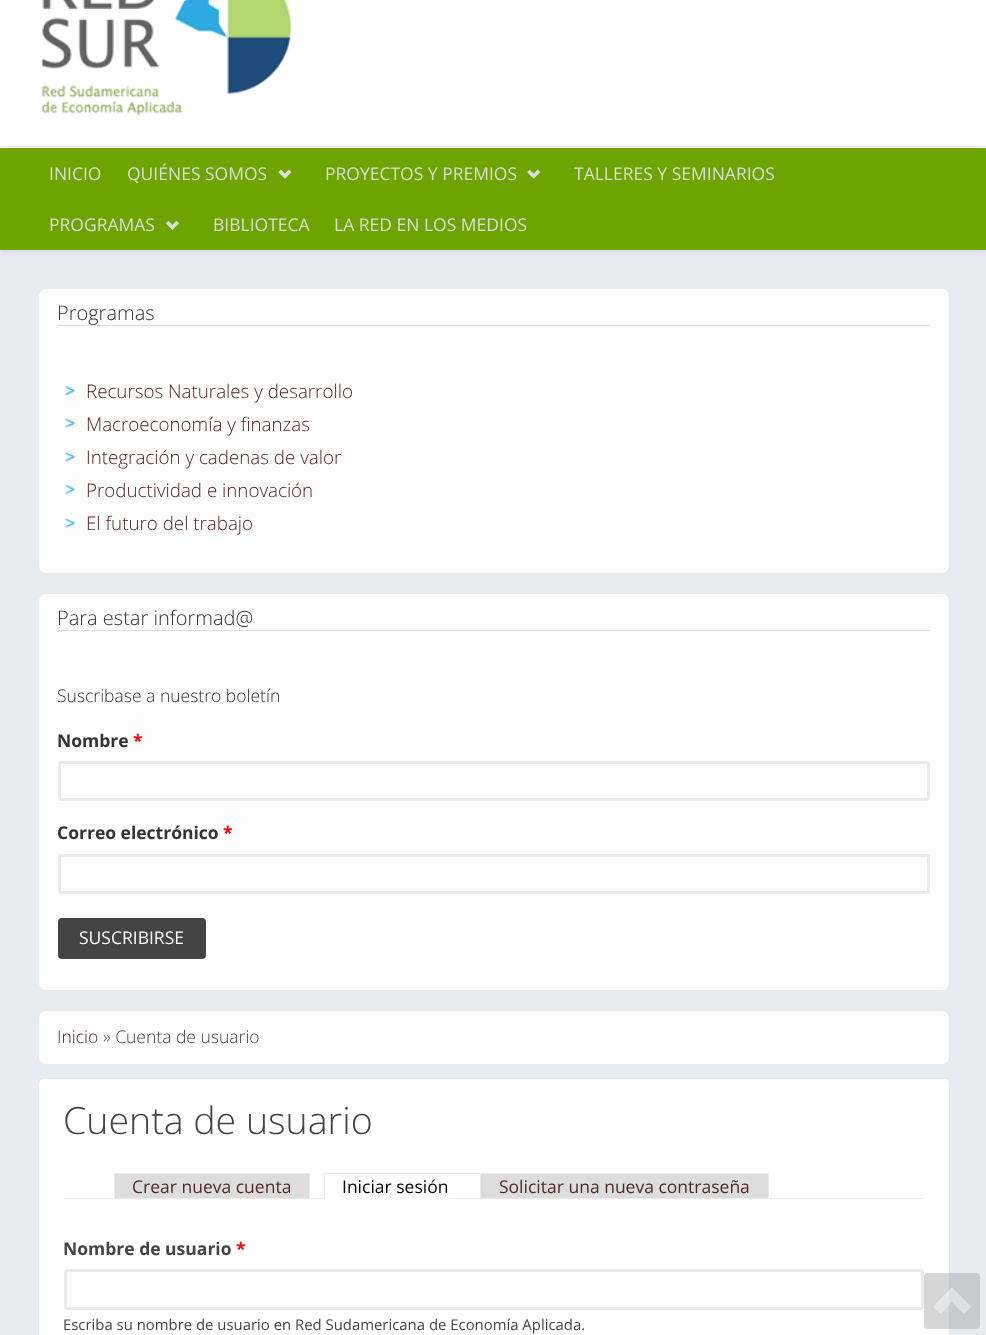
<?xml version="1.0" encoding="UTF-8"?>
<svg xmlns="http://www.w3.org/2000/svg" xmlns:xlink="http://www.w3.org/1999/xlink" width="986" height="1335">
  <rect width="100%" height="100%" fill="#e7ecf2" />
  <rect width="986" height="148" fill="#ffffff" />
  <rect y="146" width="986" height="1" fill="#eaeaea" />
  <image x="38" y="0" width="254" height="118" xlink:href="image1.png" />
  <rect y="150" width="986" height="103" fill="#000000" fill-opacity="0.07" filter="blur(2.5px)" />
  <rect y="148" width="986" height="102" fill="#6da400" />
  <image x="278" y="169" width="14" height="10" xlink:href="image2.png" />
  <image x="527" y="169" width="14" height="10" xlink:href="image3.png" />
  <image x="165" y="220" width="14" height="10" xlink:href="image4.png" />
  <rect x="38.5" y="288.5" width="911" height="285" rx="7.5" fill="#fcfcfc" stroke="#eaeaea" />
  <rect x="58" y="325" width="872" height="1" fill="#dedede" />
  <image x="65" y="386" width="11" height="10" xlink:href="image5.png" />
  <image x="65" y="418" width="11" height="10" xlink:href="image6.png" />
  <image x="65" y="452" width="11" height="10" xlink:href="image7.png" />
  <image x="65" y="484" width="11" height="10" xlink:href="image8.png" />
  <image x="65" y="518" width="11" height="10" xlink:href="image6.png" />
  <rect x="38.5" y="593.5" width="911" height="397" rx="7.5" fill="#fcfcfc" stroke="#eaeaea" />
  <rect x="58" y="630" width="872" height="1" fill="#dedede" />
  <rect x="59.5" y="762.5" width="869" height="37" rx="2.5" fill="none" stroke="#eaeaea" stroke-width="3" />
  <rect x="59.5" y="855.5" width="869" height="37" rx="2.5" fill="none" stroke="#eaeaea" stroke-width="3" />
  <rect x="58" y="918" width="148" height="41" rx="4" fill="#444444" />
  <rect x="38.5" y="1010.5" width="911" height="54" rx="7.5" fill="#fcfcfc" stroke="#eaeaea" />
  <rect x="38.5" y="1078.5" width="911" height="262" rx="4.5" fill="#ffffff" stroke="#eaeaea" />
  <rect x="64" y="1198" width="860" height="1" fill="#eaeaea" />
  <rect x="115" y="1174" width="194" height="24" fill="#dddddd" />
  <rect x="114" y="1173" width="196" height="1" fill="#eaeaea" />
  <rect x="309" y="1173" width="1" height="25" fill="#eaeaea" />
  <rect x="114" y="1173" width="1" height="25" fill="#eaeaea" />
  <rect x="325" y="1198" width="124" height="1" fill="#ffffff" />
  <rect x="324" y="1173" width="445" height="1" fill="#eaeaea" />
  <rect x="324" y="1173" width="1" height="26" fill="#eaeaea" />
  <rect x="481" y="1174" width="287" height="24" fill="#dddddd" />
  <rect x="768" y="1173" width="1" height="25" fill="#eaeaea" />
  <rect x="480" y="1173" width="1" height="25" fill="#eaeaea" />
  <rect x="65.5" y="1270.5" width="857" height="38" rx="2.5" fill="#fcfcfc" stroke="#eaeaea" stroke-width="3" />
  <rect x="924" y="1273" width="56" height="56" rx="4" fill="#999999" fill-opacity="0.4" />
  <path d="M 933 1306.5 l 7.5 7.5 l 11.5 -12 l 12 12 l 7.5 -7.5 l -19.5 -19.5 z" fill="#ffffff" fill-opacity="0.4" />
  <text x="49" y="180" style="font-family: Open Sans; font-size: 17.5px; fill: #dddddd">INICIO</text>
  <text x="127" y="180" style="font-family: Open Sans; font-size: 17.5px; fill: #dddddd">QUIÉNES SOMOS</text>
  <text x="325" y="180" style="font-family: Open Sans; font-size: 17.5px; fill: #dddddd">PROYECTOS Y PREMIOS</text>
  <text x="574" y="180" style="font-family: Open Sans; font-size: 17.5px; fill: #dddddd">TALLERES Y SEMINARIOS</text>
  <text x="49" y="231" style="font-family: Open Sans; font-size: 17.5px; fill: #dddddd">PROGRAMAS</text>
  <text x="213" y="231" style="font-family: Open Sans; font-size: 17.5px; fill: #dddddd">BIBLIOTECA</text>
  <text x="334" y="231" style="font-family: Open Sans; font-size: 17.5px; fill: #dddddd">LA RED EN LOS MEDIOS</text>
  <text x="57" y="320" style="font-family: Open Sans; font-size: 20px; font-weight: 300; fill: #333333">Programas</text>
  <text x="86" y="398" style="font-family: Open Sans; font-size: 18.75px; font-weight: 300; fill: #522929">Recursos Naturales y desarrollo</text>
  <text x="86" y="431" style="font-family: Open Sans; font-size: 18.75px; font-weight: 300; fill: #522929">Macroeconomía y finanzas</text>
  <text x="86" y="464" style="font-family: Open Sans; font-size: 18.75px; font-weight: 300; fill: #522929">Integración y cadenas de valor</text>
  <text x="86" y="497" style="font-family: Open Sans; font-size: 18.75px; font-weight: 300; fill: #522929">Productividad e innovación</text>
  <text x="86" y="530" style="font-family: Open Sans; font-size: 18.75px; font-weight: 300; fill: #522929">El futuro del trabajo</text>
  <text x="57" y="625" style="font-family: Open Sans; font-size: 20px; font-weight: 300; fill: #333333">Para estar informad@</text>
  <text x="57" y="702" style="font-family: Open Sans; font-size: 17.5px; font-weight: 300; fill: #333333">Suscribase a nuestro boletín</text>
  <text x="57" y="747" style="font-family: Open Sans; font-size: 17.5px; font-weight: bold; fill: #333333">Nombre</text>
  <text x="133" y="747" style="font-family: Open Sans; font-size: 17.5px; font-weight: bold; fill: #ff0000">*</text>
  <text x="57" y="839" style="font-family: Open Sans; font-size: 17.5px; font-weight: bold; fill: #333333">Correo electrónico</text>
  <text x="223" y="839" style="font-family: Open Sans; font-size: 17.5px; font-weight: bold; fill: #ff0000">*</text>
  <text x="79" y="944" style="font-family: Open Sans; font-size: 17.5px; fill: #ffffff">SUSCRIBIRSE</text>
  <text x="57" y="1043" style="font-family: Open Sans; font-size: 17.5px; font-weight: 300; fill: #522929">Inicio</text>
  <text x="103" y="1043" style="font-family: Open Sans; font-size: 17.5px; font-weight: 300; fill: #444444">» Cuenta de usuario</text>
  <text x="63" y="1134" style="font-family: Open Sans; font-size: 37.5px; font-weight: 300; fill: #444444">Cuenta de usuario</text>
  <text x="132" y="1193" style="font-family: Open Sans; font-size: 17.5px; fill: #522929">Crear nueva cuenta</text>
  <text x="342" y="1193" style="font-family: Open Sans; font-size: 17.5px; fill: #000000">Iniciar sesión</text>
  <text x="499" y="1193" style="font-family: Open Sans; font-size: 17.5px; fill: #522929">Solicitar una nueva contraseña</text>
  <text x="63" y="1255" style="font-family: Open Sans; font-size: 17.5px; font-weight: bold; fill: #444444">Nombre de usuario</text>
  <text x="236" y="1255" style="font-family: Open Sans; font-size: 17.5px; font-weight: bold; fill: #ff0000">*</text>
  <text x="63" y="1330" style="font-family: Open Sans; font-size: 14.9px; fill: #444444">Escriba su nombre de usuario en Red Sudamericana de Economía Aplicada.</text>
</svg>
